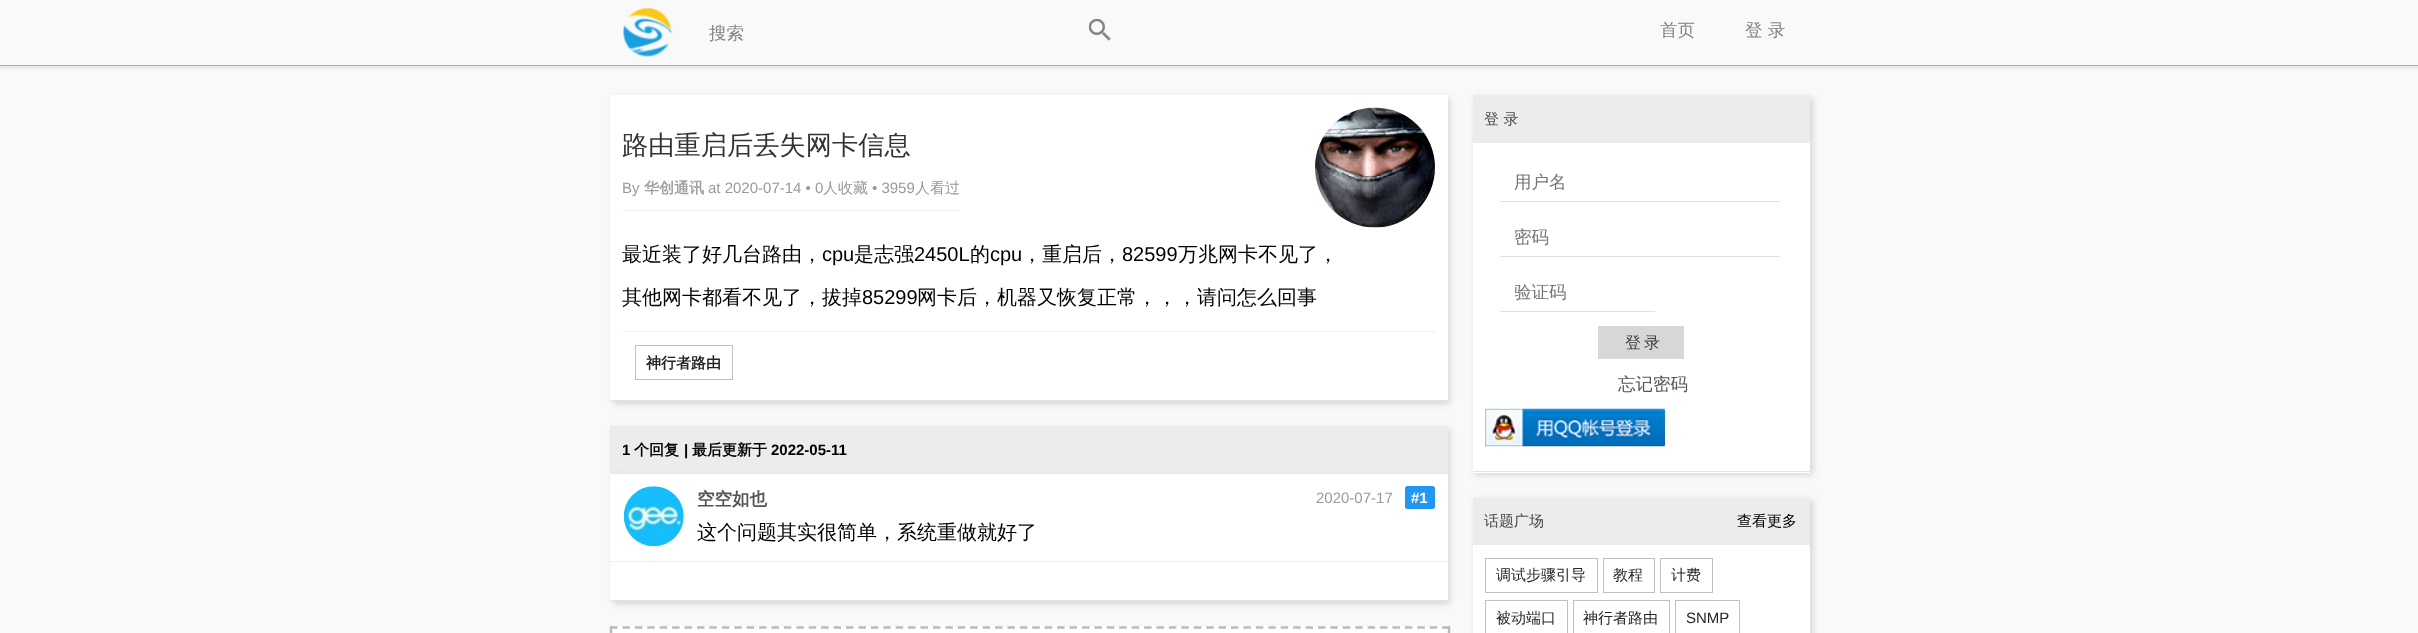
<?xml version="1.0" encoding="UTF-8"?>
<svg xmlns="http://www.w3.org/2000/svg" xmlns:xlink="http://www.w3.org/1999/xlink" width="2418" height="633">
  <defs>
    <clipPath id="clip1"><rect x="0" y="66" width="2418" height="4" /></clipPath>
    <clipPath id="clip2"><rect x="1515" y="281" width="125" height="23" /></clipPath>
  </defs>
  <rect width="100%" height="100%" fill="#f9f9f9" />
  <g clip-path="url(#clip1)">
    <rect y="3" width="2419" height="66" fill="#191919" fill-opacity="0.07" filter="blur(1px)" />
  </g>
  <rect y="65" width="2418" height="1" fill="#60c8f7" />
  <image x="623" y="7" width="49" height="50" xlink:href="image1.png" />
  <image x="1088" y="18" width="23" height="23" xlink:href="image2.png" />
  <rect x="613" y="98" width="837" height="306" fill="#d3d6da" filter="blur(3px)" />
  <rect x="610" y="95" width="838" height="305" fill="#ffffff" />
  <rect x="610" y="400" width="838" height="1" fill="#e2e2e9" />
  <rect x="623" y="210" width="337" height="1" fill="#efefef" />
  <image x="1315" y="107" width="120" height="121" xlink:href="image3.png" />
  <rect x="623" y="331" width="812" height="1" fill="#efefef" />
  <rect x="635.5" y="345.5" width="97" height="34" fill="none" stroke="#bfbfbf" />
  <rect x="613" y="429" width="837" height="47" fill="#d3d6da" filter="blur(3px)" />
  <rect x="610" y="426" width="838" height="48" fill="#ececec" />
  <rect x="613" y="476" width="837" height="128" fill="#d3d6da" filter="blur(3px)" />
  <rect x="610" y="474" width="838" height="126" fill="#ffffff" />
  <rect x="610" y="600" width="838" height="1" fill="#e2e2e9" />
  <rect x="610" y="561" width="838" height="1" fill="#efefef" />
  <image x="623" y="486" width="61" height="61" xlink:href="image4.png" />
  <rect x="1405" y="486" width="30" height="23" rx="2.5" fill="#2196f3" />
  <rect x="610" y="626" width="840" height="7" fill="#ffffff" />
  <path d="M 610 627.5 h 840" fill="none" stroke="#bbbbbb" stroke-width="2.5" stroke-dasharray="7.5 4.92" />
  <path d="M 1449 626 v 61.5" fill="none" stroke="#bbbbbb" stroke-width="2.5" stroke-dasharray="7.5 5.94" />
  <path d="M 611 626 v 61.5" fill="none" stroke="#bbbbbb" stroke-width="2.5" stroke-dasharray="7.5 5.94" />
  <rect x="1475" y="98" width="338" height="377" fill="#d3d6da" filter="blur(3px)" />
  <rect x="1473" y="143" width="337" height="330" fill="#ffffff" />
  <rect x="1473" y="471" width="337" height="1" fill="#e2e2e2" />
  <rect x="1473" y="95" width="337" height="48" fill="#ececec" />
  <rect x="1500" y="201" width="280" height="1" fill="#e0e0e0" />
  <rect x="1500" y="256" width="280" height="1" fill="#e0e0e0" />
  <rect x="1500" y="311" width="155" height="1" fill="#e0e0e0" />
  <rect x="1598" y="326" width="86" height="33" fill="#d6d7d7" />
  <image x="1485" y="408" width="180" height="39" xlink:href="image5.png" />
  <rect x="1475" y="500" width="338" height="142" fill="#d3d6da" filter="blur(3px)" />
  <rect x="1473" y="545" width="337" height="88" fill="#ffffff" />
  <rect x="1473" y="498" width="337" height="47" fill="#ececec" />
  <rect x="1485.5" y="558.5" width="112" height="34" fill="none" stroke="#bfbfbf" />
  <rect x="1603.5" y="558.5" width="51" height="34" fill="none" stroke="#bfbfbf" />
  <rect x="1660.5" y="558.5" width="52" height="34" fill="none" stroke="#bfbfbf" />
  <rect x="1485.5" y="600.5" width="82" height="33" fill="none" stroke="#bfbfbf" />
  <rect x="1573.5" y="600.5" width="96" height="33" fill="none" stroke="#bfbfbf" />
  <rect x="1675.5" y="600.5" width="64" height="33" fill="none" stroke="#bfbfbf" />
  <text x="709" y="39" style="font-family: WenQuanYi Zen Hei; font-size: 17.5px; font-weight: 500; fill: #828282">搜索</text>
  <text x="1660" y="36" style="font-family: WenQuanYi Zen Hei; font-size: 17.5px; font-weight: 500; fill: #828282">首页</text>
  <text x="1745" y="36" style="font-family: WenQuanYi Zen Hei; font-size: 17.5px; font-weight: 500; fill: #828282">登 录</text>
  <text x="622" y="154" style="font-family: WenQuanYi Zen Hei; font-size: 26.25px; font-weight: 500; fill: #333333">路由重启后丢失网卡信息</text>
  <text x="622" y="193" style="font-family: Liberation Sans; font-size: 15px; fill: #999999">By</text>
  <text x="644" y="193" style="font-family: WenQuanYi Zen Hei; font-size: 15px; font-weight: bold; fill: #a0a0a0">华创通讯</text>
  <text x="708" y="193" style="font-family: Liberation Sans; font-size: 15px; fill: #999999">at 2020-07-14 • 0</text>
  <text x="823" y="193" style="font-family: WenQuanYi Zen Hei; font-size: 15px; font-weight: 500; fill: #999999">人收藏</text>
  <text x="872" y="193" style="font-family: Liberation Sans; font-size: 15px; fill: #999999">• 3959</text>
  <text x="915" y="193" style="font-family: WenQuanYi Zen Hei; font-size: 15px; font-weight: 500; fill: #999999">人看过</text>
  <text x="622" y="261" style="font-family: WenQuanYi Zen Hei; font-size: 20px; font-weight: 500; fill: #000000">最近装了好几台路由，</text>
  <text x="822" y="261" style="font-family: Liberation Sans; font-size: 20px; fill: #000000">cpu</text>
  <text x="854" y="261" style="font-family: WenQuanYi Zen Hei; font-size: 20px; font-weight: 500; fill: #000000">是志强</text>
  <text x="914" y="261" style="font-family: Liberation Sans; font-size: 20px; fill: #000000">2450L</text>
  <text x="970" y="261" style="font-family: WenQuanYi Zen Hei; font-size: 20px; font-weight: 500; fill: #000000">的</text>
  <text x="990" y="261" style="font-family: Liberation Sans; font-size: 20px; fill: #000000">cpu</text>
  <text x="1022" y="261" style="font-family: WenQuanYi Zen Hei; font-size: 20px; font-weight: 500; fill: #000000">，重启后，</text>
  <text x="1122" y="261" style="font-family: Liberation Sans; font-size: 20px; fill: #000000">82599</text>
  <text x="1178" y="261" style="font-family: WenQuanYi Zen Hei; font-size: 20px; font-weight: 500; fill: #000000">万兆网卡不见了，</text>
  <text x="622" y="304" style="font-family: WenQuanYi Zen Hei; font-size: 20px; font-weight: 500; fill: #000000">其他网卡都看不见了，拔掉</text>
  <text x="862" y="304" style="font-family: Liberation Sans; font-size: 20px; fill: #000000">85299</text>
  <text x="917" y="304" style="font-family: WenQuanYi Zen Hei; font-size: 20px; font-weight: 500; fill: #000000">网卡后，机器又恢复正常，，，请问怎么回事</text>
  <text x="646" y="368" style="font-family: WenQuanYi Zen Hei; font-size: 15px; font-weight: bold; fill: #262626">神行者路由</text>
  <text x="622" y="455" style="font-family: Liberation Sans; font-size: 15px; font-weight: bold; fill: #000000">1</text>
  <text x="634" y="455" style="font-family: WenQuanYi Zen Hei; font-size: 15px; font-weight: bold; fill: #000000">个回复</text>
  <text x="684" y="455" style="font-family: Liberation Sans; font-size: 15px; font-weight: bold; fill: #000000">|</text>
  <text x="692" y="455" style="font-family: WenQuanYi Zen Hei; font-size: 15px; font-weight: bold; fill: #000000">最后更新于</text>
  <text x="771" y="455" style="font-family: Liberation Sans; font-size: 15px; font-weight: bold; fill: #000000">2022-05-11</text>
  <text x="697" y="505" style="font-family: WenQuanYi Zen Hei; font-size: 17.5px; font-weight: bold; fill: #555555">空空如也</text>
  <text x="1316" y="503" style="font-family: Liberation Sans; font-size: 15px; fill: #999999">2020-07-17</text>
  <text x="1411" y="503" style="font-family: Liberation Sans; font-size: 15px; font-weight: bold; fill: #ffffff">#1</text>
  <text x="697" y="539" style="font-family: WenQuanYi Zen Hei; font-size: 20px; font-weight: 500; fill: #000000">这个问题其实很简单，系统重做就好了</text>
  <text x="1484" y="124" style="font-family: WenQuanYi Zen Hei; font-size: 15px; font-weight: 500; fill: #474846">登 录</text>
  <text x="1514" y="188" style="font-family: WenQuanYi Zen Hei; font-size: 17.5px; font-weight: 500; fill: #757575">用户名</text>
  <text x="1514" y="243" style="font-family: WenQuanYi Zen Hei; font-size: 17.5px; font-weight: 500; fill: #757575">密码</text>
  <g clip-path="url(#clip2)">
    <text x="1514" y="298" style="font-family: WenQuanYi Zen Hei; font-size: 17.5px; font-weight: 500; fill: #757575">验证码</text>
  </g>
  <text x="1625" y="348" style="font-family: WenQuanYi Zen Hei; font-size: 16px; font-weight: 500; fill: #3c3c3c">登</text>
  <text x="1644" y="348" style="font-family: WenQuanYi Zen Hei; font-size: 16px; font-weight: 500; fill: #3c3c3c">录</text>
  <text x="1618" y="390" style="font-family: WenQuanYi Zen Hei; font-size: 17.5px; font-weight: 500; fill: #555555">忘记密码</text>
  <text x="1484" y="526" style="font-family: WenQuanYi Zen Hei; font-size: 15px; font-weight: 500; fill: #474846">话题广场</text>
  <text x="1737" y="526" style="font-family: WenQuanYi Zen Hei; font-size: 15px; font-weight: 500; fill: #000000">查看更多</text>
  <text x="1496" y="580" style="font-family: WenQuanYi Zen Hei; font-size: 15px; font-weight: 500; fill: #262626">调试步骤引导</text>
  <text x="1613" y="580" style="font-family: WenQuanYi Zen Hei; font-size: 15px; font-weight: 500; fill: #262626">教程</text>
  <text x="1671" y="580" style="font-family: WenQuanYi Zen Hei; font-size: 15px; font-weight: 500; fill: #262626">计费</text>
  <text x="1496" y="623" style="font-family: WenQuanYi Zen Hei; font-size: 15px; font-weight: 500; fill: #262626">被动端口</text>
  <text x="1583" y="623" style="font-family: WenQuanYi Zen Hei; font-size: 15px; font-weight: 500; fill: #262626">神行者路由</text>
  <text x="1686" y="623" style="font-family: Liberation Sans; font-size: 15px; fill: #262626">SNMP</text>
</svg>
